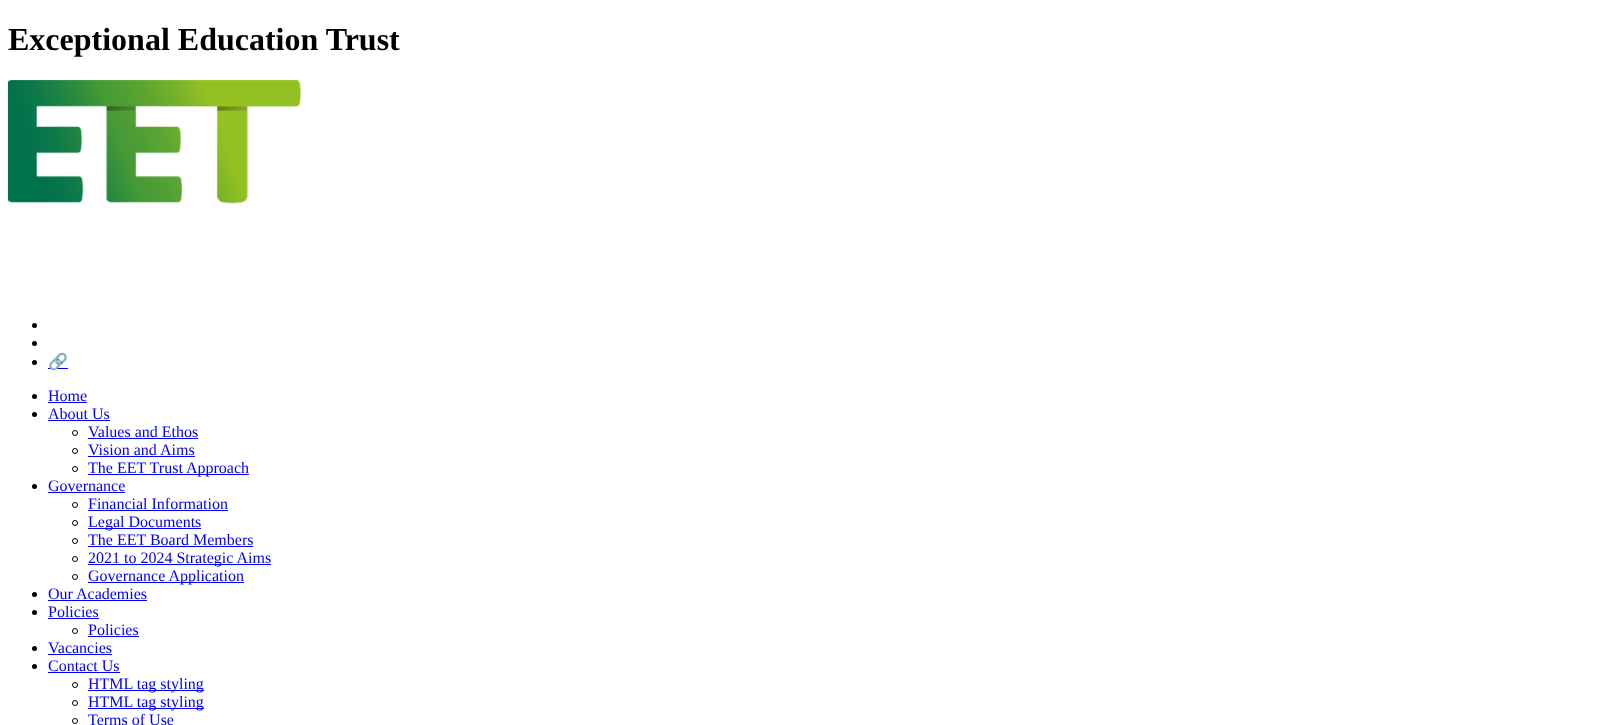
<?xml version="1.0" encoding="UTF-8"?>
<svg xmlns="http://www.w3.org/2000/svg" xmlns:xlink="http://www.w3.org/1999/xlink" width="1619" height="725">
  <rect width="100%" height="100%" fill="#ffffff" />
  <image x="8" y="80" width="293" height="124" xlink:href="image1.png" />
  <circle cx="34.5" cy="325.5" r="2.5" fill="#000000" />
  <circle cx="34.5" cy="343.5" r="2.5" fill="#000000" />
  <circle cx="34.5" cy="362.5" r="2.5" fill="#000000" />
  <rect x="48" y="368" width="20" height="1" fill="#0000ee" />
  <circle cx="34.5" cy="396.5" r="2.5" fill="#000000" />
  <rect x="48" y="402" width="39" height="1" fill="#0000ee" />
  <circle cx="34.5" cy="414.5" r="2.5" fill="#000000" />
  <rect x="48" y="420" width="62" height="1" fill="#0000ee" />
  <circle cx="75" cy="433" r="2.5" fill="none" stroke="#000000" />
  <rect x="88" y="438" width="110" height="1" fill="#0000ee" />
  <circle cx="75" cy="451" r="2.5" fill="none" stroke="#000000" />
  <rect x="88" y="456" width="107" height="1" fill="#0000ee" />
  <circle cx="75" cy="469" r="2.5" fill="none" stroke="#000000" />
  <rect x="88" y="474" width="161" height="1" fill="#0000ee" />
  <circle cx="34.5" cy="486.5" r="2.5" fill="#000000" />
  <rect x="48" y="492" width="77" height="1" fill="#0000ee" />
  <circle cx="75" cy="505" r="2.5" fill="none" stroke="#000000" />
  <rect x="88" y="510" width="140" height="1" fill="#0000ee" />
  <circle cx="75" cy="523" r="2.5" fill="none" stroke="#000000" />
  <rect x="88" y="528" width="113" height="1" fill="#0000ee" />
  <circle cx="75" cy="541" r="2.5" fill="none" stroke="#000000" />
  <rect x="88" y="546" width="165" height="1" fill="#0000ee" />
  <circle cx="75" cy="559" r="2.5" fill="none" stroke="#000000" />
  <rect x="88" y="564" width="183" height="1" fill="#0000ee" />
  <circle cx="75" cy="577" r="2.5" fill="none" stroke="#000000" />
  <rect x="88" y="582" width="156" height="1" fill="#0000ee" />
  <circle cx="34.5" cy="594.5" r="2.5" fill="#000000" />
  <rect x="48" y="600" width="99" height="1" fill="#0000ee" />
  <circle cx="34.5" cy="612.5" r="2.5" fill="#000000" />
  <rect x="48" y="618" width="51" height="1" fill="#0000ee" />
  <circle cx="75" cy="631" r="2.5" fill="none" stroke="#000000" />
  <rect x="88" y="636" width="51" height="1" fill="#0000ee" />
  <circle cx="34.5" cy="648.5" r="2.5" fill="#000000" />
  <rect x="48" y="654" width="64" height="1" fill="#0000ee" />
  <circle cx="34.5" cy="666.5" r="2.5" fill="#000000" />
  <rect x="48" y="672" width="72" height="1" fill="#0000ee" />
  <circle cx="75" cy="685" r="2.5" fill="none" stroke="#000000" />
  <rect x="88" y="690" width="116" height="1" fill="#0000ee" />
  <circle cx="75" cy="703" r="2.5" fill="none" stroke="#000000" />
  <rect x="88" y="708" width="116" height="1" fill="#0000ee" />
  <circle cx="75" cy="721" r="2.5" fill="none" stroke="#000000" />
  <text x="8" y="50" style="font-family: Liberation Serif; font-size: 32px; font-weight: bold; fill: #000000">Exceptional Education Trust</text>
  <text x="48" y="367" style="font-family: Noto Color Emoji; font-size: 16px; fill: #0000ee">🔗</text>
  <text x="48" y="401" style="font-family: Liberation Serif; font-size: 16px; fill: #0000ee">Home</text>
  <text x="48" y="419" style="font-family: Liberation Serif; font-size: 16px; fill: #0000ee">About Us</text>
  <text x="88" y="437" style="font-family: Liberation Serif; font-size: 16px; fill: #0000ee">Values and Ethos</text>
  <text x="88" y="455" style="font-family: Liberation Serif; font-size: 16px; fill: #0000ee">Vision and Aims</text>
  <text x="88" y="473" style="font-family: Liberation Serif; font-size: 16px; fill: #0000ee">The EET Trust Approach</text>
  <text x="48" y="491" style="font-family: Liberation Serif; font-size: 16px; fill: #0000ee">Governance</text>
  <text x="88" y="509" style="font-family: Liberation Serif; font-size: 16px; fill: #0000ee">Financial Information</text>
  <text x="88" y="527" style="font-family: Liberation Serif; font-size: 16px; fill: #0000ee">Legal Documents</text>
  <text x="88" y="545" style="font-family: Liberation Serif; font-size: 16px; fill: #0000ee">The EET Board Members</text>
  <text x="88" y="563" style="font-family: Liberation Serif; font-size: 16px; fill: #0000ee">2021 to 2024 Strategic Aims</text>
  <text x="88" y="581" style="font-family: Liberation Serif; font-size: 16px; fill: #0000ee">Governance Application</text>
  <text x="48" y="599" style="font-family: Liberation Serif; font-size: 16px; fill: #0000ee">Our Academies</text>
  <text x="48" y="617" style="font-family: Liberation Serif; font-size: 16px; fill: #0000ee">Policies</text>
  <text x="88" y="635" style="font-family: Liberation Serif; font-size: 16px; fill: #0000ee">Policies</text>
  <text x="48" y="653" style="font-family: Liberation Serif; font-size: 16px; fill: #0000ee">Vacancies</text>
  <text x="48" y="671" style="font-family: Liberation Serif; font-size: 16px; fill: #0000ee">Contact Us</text>
  <text x="88" y="689" style="font-family: Liberation Serif; font-size: 16px; fill: #0000ee">HTML tag styling</text>
  <text x="88" y="707" style="font-family: Liberation Serif; font-size: 16px; fill: #0000ee">HTML tag styling</text>
  <text x="88" y="725" style="font-family: Liberation Serif; font-size: 16px; fill: #0000ee">Terms of Use</text>
</svg>
